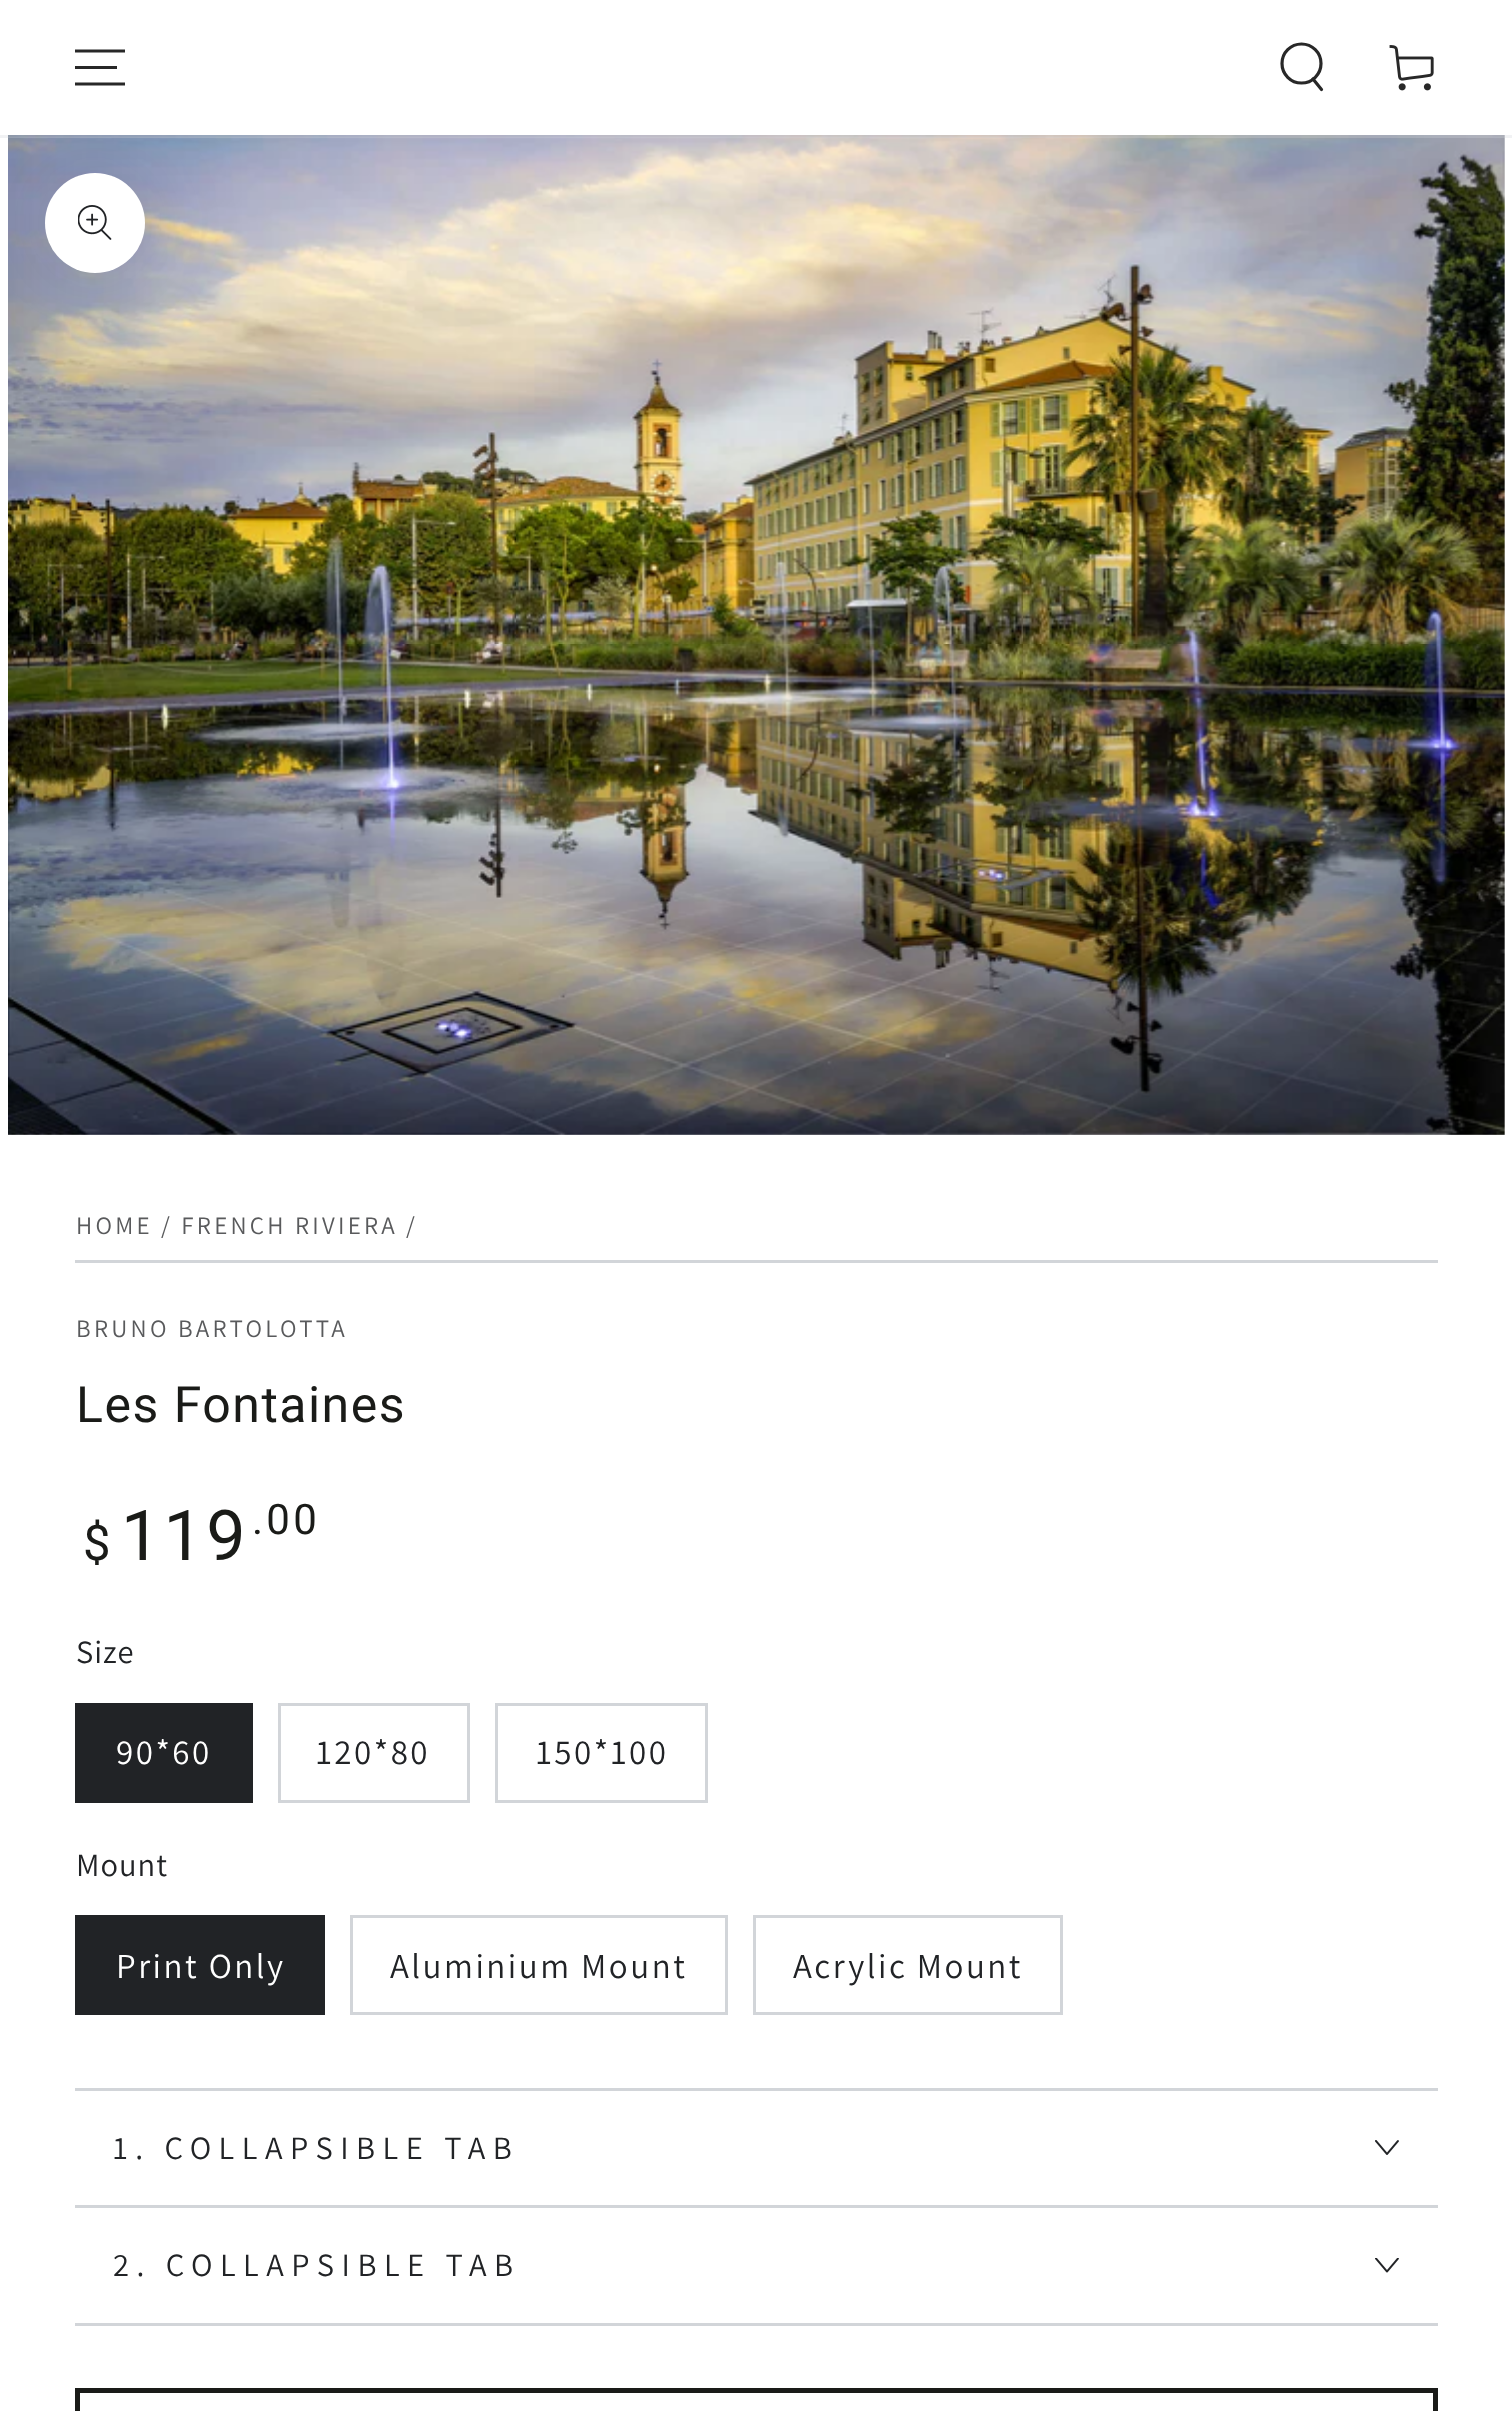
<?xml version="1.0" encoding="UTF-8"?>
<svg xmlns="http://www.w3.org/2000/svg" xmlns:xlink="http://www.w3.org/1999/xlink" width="1512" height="2411">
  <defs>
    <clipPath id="clip1"><rect x="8" y="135" width="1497" height="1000" /></clipPath>
  </defs>
  <rect width="100%" height="100%" fill="#ffffff" />
  <rect x="8" y="135" width="1497" height="1000" fill="#f3f3f3" />
  <image x="8" y="135" width="1497" height="1000" xlink:href="image3.png" />
  <g clip-path="url(#clip1)">
    <rect x="45" y="173" width="100" height="100" rx="50" fill="#212326" fill-opacity="0.2" filter="blur(50px)" />
  </g>
  <path d="M 0 135 v 3 h 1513 v -135 h -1 v 132 z" fill="#d2d5d9" fill-opacity="0.3" />
  <path d="M 75 84 h 50 m -50 -16.5 h 42 m -42 -16.5 h 50" fill="none" stroke="#282828" stroke-width="3.1" />
  <circle cx="1301.5" cy="63.5" r="19.5" fill="none" stroke="#282828" stroke-width="3.2" />
  <path d="M 1313 79 l 8.5 10.5" fill="none" stroke="#282828" stroke-width="3.2" stroke-linecap="round" />
  <image x="1389" y="45" width="45" height="46" xlink:href="image1.png" />
  <circle cx="95" cy="223" r="50" fill="#ffffff" />
  <image x="78" y="205" width="34" height="35" xlink:href="image2.png" />
  <rect x="75" y="1260" width="1363" height="3" fill="#d2d5d9" />
  <rect x="75" y="1703" width="178" height="100" fill="#212326" />
  <rect x="279.5" y="1704.5" width="189" height="97" fill="none" stroke="#d2d5d9" stroke-width="3" />
  <rect x="496.5" y="1704.5" width="210" height="97" fill="none" stroke="#d2d5d9" stroke-width="3" />
  <rect x="75" y="1915" width="250" height="100" fill="#212326" />
  <rect x="351.5" y="1916.5" width="375" height="97" fill="none" stroke="#d2d5d9" stroke-width="3" />
  <rect x="754.5" y="1916.5" width="307" height="97" fill="none" stroke="#d2d5d9" stroke-width="3" />
  <rect x="75" y="2088" width="1363" height="3" fill="#d2d5d9" />
  <rect x="75" y="2205" width="1363" height="3" fill="#d2d5d9" />
  <image x="1375" y="2140" width="24" height="15" xlink:href="image4.png" />
  <rect x="75" y="2323" width="1363" height="3" fill="#d2d5d9" />
  <image x="1375" y="2258" width="24" height="15" xlink:href="image5.png" />
  <rect x="77.5" y="2390.5" width="1358" height="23" fill="none" stroke="#1a1b18" stroke-width="5" />
  <text x="76" y="1234" style="font-family: Assistant; font-size: 25px; letter-spacing: 3.25px; fill: #595a5c">HOME</text>
  <text x="161" y="1234" style="font-family: Assistant; font-size: 25px; letter-spacing: 3.25px; fill: #595a5c">/ FRENCH RIVIERA</text>
  <text x="406" y="1234" style="font-family: Assistant; font-size: 25px; letter-spacing: 3.25px; fill: #595a5c">/</text>
  <text x="76" y="1337" style="font-family: Assistant; font-size: 25px; letter-spacing: 3.25px; fill: #595a5c">BRUNO BARTOLOTTA</text>
  <text x="76" y="1422" style="font-family: Roboto; font-size: 50px; letter-spacing: 1.5px; fill: #1a1b18">Les Fontaines</text>
  <text x="83" y="1560" style="font-family: Roboto; font-size: 49px; letter-spacing: 3.25px; fill: #1a1b18">$</text>
  <text x="121" y="1560" style="font-family: Roboto; font-size: 70px; letter-spacing: 3.25px; fill: #1a1b18">119</text>
  <text x="252" y="1534" style="font-family: Roboto; font-size: 42px; letter-spacing: 3.25px; fill: #1a1b18">.00</text>
  <text x="76" y="1663" style="font-family: Assistant; font-size: 32.5px; letter-spacing: 1px; fill: #212326">Size</text>
  <text x="116" y="1764" style="font-family: Assistant; font-size: 35px; letter-spacing: 2.5px; fill: #ffffff">90*60</text>
  <text x="316" y="1764" style="font-family: Assistant; font-size: 35px; letter-spacing: 2.5px; fill: #212326">120*80</text>
  <text x="536" y="1764" style="font-family: Assistant; font-size: 35px; letter-spacing: 2.5px; fill: #212326">150*100</text>
  <text x="76" y="1876" style="font-family: Assistant; font-size: 32.5px; letter-spacing: 1px; fill: #212326">Mount</text>
  <text x="116" y="1978" style="font-family: Assistant; font-size: 35px; letter-spacing: 2.5px; fill: #ffffff">Print Only</text>
  <text x="390" y="1978" style="font-family: Assistant; font-size: 35px; letter-spacing: 2.5px; fill: #212326">Aluminium Mount</text>
  <text x="793" y="1978" style="font-family: Assistant; font-size: 35px; letter-spacing: 2.5px; fill: #212326">Acrylic Mount</text>
  <text x="113" y="2159" style="font-family: Assistant; font-size: 32.5px; letter-spacing: 7.5px; fill: #212326">1. COLLAPSIBLE TAB</text>
  <text x="113" y="2276" style="font-family: Assistant; font-size: 32.5px; letter-spacing: 7.5px; fill: #212326">2. COLLAPSIBLE TAB</text>
</svg>
